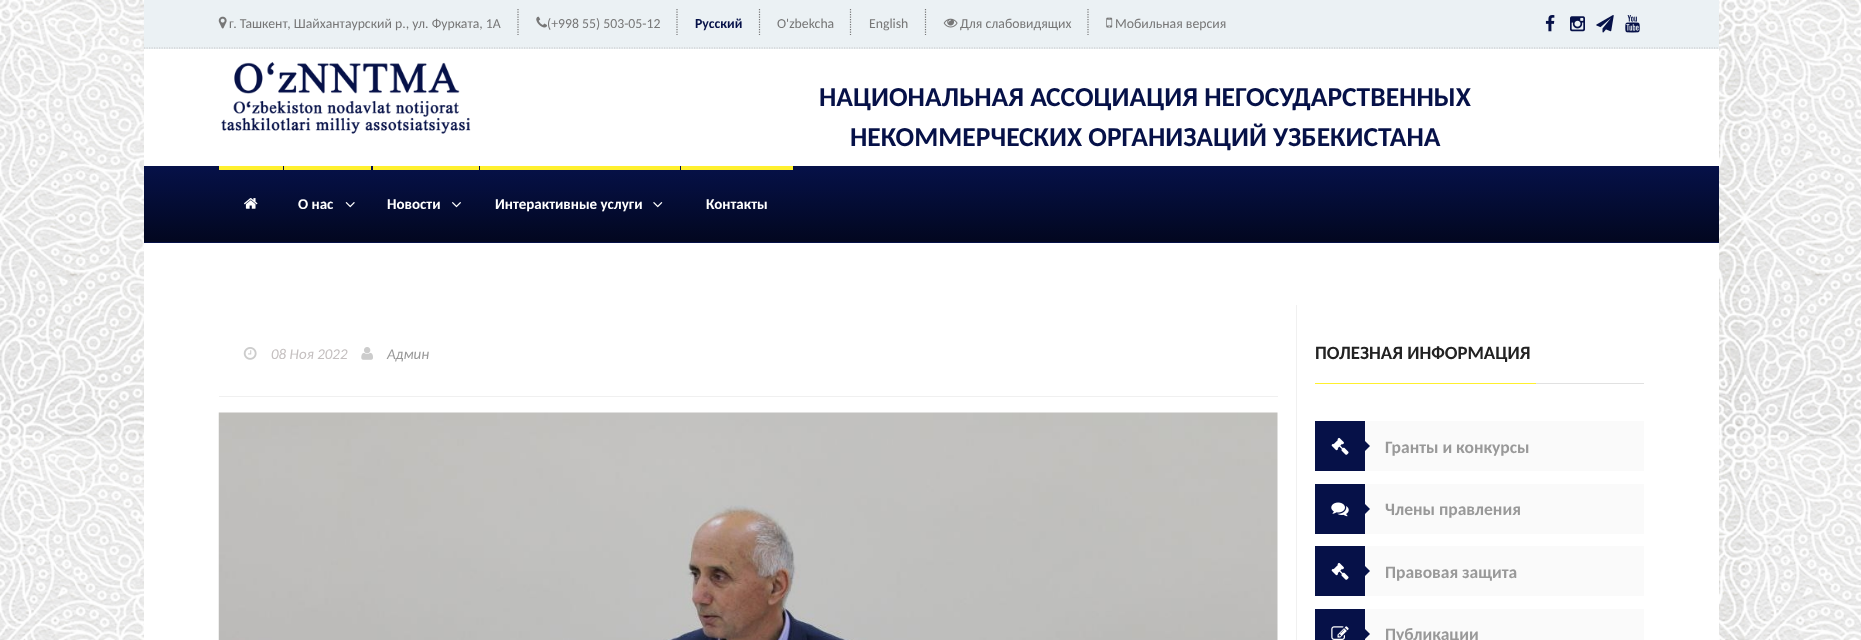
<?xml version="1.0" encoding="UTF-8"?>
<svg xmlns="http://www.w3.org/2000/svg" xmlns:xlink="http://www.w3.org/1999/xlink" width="1861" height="640">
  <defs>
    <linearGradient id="g1" gradientUnits="userSpaceOnUse" x1="931" y1="166" x2="931" y2="241"><stop offset="0.01" stop-color="#061148" /><stop offset="1" stop-color="#020720" /></linearGradient>
    <linearGradient id="g2" gradientUnits="userSpaceOnUse" x1="931" y1="241" x2="931" y2="316"><stop offset="0.01" stop-color="#061148" /><stop offset="1" stop-color="#020720" /></linearGradient>
  </defs>
  <rect width="100%" height="100%" fill="#ffffff" />
  <image x="0" y="0" width="1861" height="640" xlink:href="image1.png" />
  <rect x="144" y="243" width="1575" height="397" fill="#ffffff" />
  <rect x="144" width="1575" height="49" fill="#ebf1f4" />
  <path d="M 144 48 h 1575" fill="none" stroke="#c6c6c6" stroke-width="1.2" stroke-dasharray="1.25 1.25" />
  <image x="218" y="16" width="9" height="13" xlink:href="image2.png" />
  <path d="M 518 9 v 26" fill="none" stroke="#777777" stroke-width="1.2" stroke-dasharray="1.25 1.25" />
  <image x="536" y="16" width="11" height="12" xlink:href="image3.png" />
  <path d="M 677 9 v 26" fill="none" stroke="#777777" stroke-width="1.2" stroke-dasharray="1.25 1.25" />
  <path d="M 759.5 9 v 26" fill="none" stroke="#777777" stroke-width="1.2" stroke-dasharray="1.25 1.25" />
  <path d="M 850.5 9 v 26" fill="none" stroke="#777777" stroke-width="1.2" stroke-dasharray="1.25 1.25" />
  <path d="M 925.5 9 v 26" fill="none" stroke="#777777" stroke-width="1.2" stroke-dasharray="1.25 1.25" />
  <image x="943" y="18" width="15" height="10" xlink:href="image4.png" />
  <path d="M 1088 9 v 26" fill="none" stroke="#777777" stroke-width="1.2" stroke-dasharray="1.25 1.25" />
  <image x="1106" y="17" width="7" height="11" xlink:href="image5.png" />
  <image x="1545" y="15" width="10" height="17" xlink:href="image6.png" />
  <image x="1570" y="16" width="15" height="16" xlink:href="image7.png" />
  <image x="1596" y="15" width="18" height="18" xlink:href="image8.png" />
  <image x="1625" y="15" width="15" height="18" xlink:href="image9.png" />
  <rect x="144" y="49" width="1575" height="117" fill="#ffffff" />
  <image x="221" y="62" width="250" height="72" xlink:href="image10.png" />
  <rect x="144" y="166" width="1575" height="75" fill="url(#g1)" />
  <rect x="144" y="242" width="1575" height="1" fill="url(#g2)" />
  <rect x="144" y="241" width="1575" height="1" fill="#020720" />
  <rect x="219" y="166" width="64" height="4" fill="#fff02e" />
  <image x="244" y="198" width="14" height="11" xlink:href="image11.png" />
  <rect x="284" y="166" width="87" height="4" fill="#fff02e" />
  <image x="345" y="202" width="10" height="6" xlink:href="image12.png" />
  <rect x="373" y="166" width="106" height="4" fill="#fff02e" />
  <image x="452" y="202" width="9" height="6" xlink:href="image13.png" />
  <rect x="480" y="166" width="200" height="4" fill="#fff02e" />
  <image x="653" y="202" width="10" height="6" xlink:href="image14.png" />
  <rect x="681" y="166" width="112" height="4" fill="#fff02e" />
  <rect x="219" y="396" width="1059" height="1" fill="#f0f0f0" />
  <image x="243" y="347" width="14" height="13" xlink:href="image15.png" />
  <image x="361" y="347" width="12" height="13" xlink:href="image16.png" />
  <image x="218" y="412" width="1060" height="228" xlink:href="image17.png" />
  <rect x="1296" y="305" width="1" height="335" fill="#f0f0f0" />
  <rect x="1536" y="383" width="108" height="1" fill="#e1e1e1" />
  <rect x="1315" y="383" width="221" height="1" fill="#fff02e" />
  <rect x="1365" y="421" width="279" height="50" fill="#fafafa" />
  <rect x="1315" y="421" width="50" height="50" fill="#061148" />
  <image x="1331" y="437" width="18" height="18" xlink:href="image18.png" />
  <path d="M 1365 451 v -10 l 5 5 z" fill="#061148" />
  <rect x="1365" y="484" width="279" height="50" fill="#fafafa" />
  <rect x="1315" y="484" width="50" height="50" fill="#061148" />
  <image x="1331" y="502" width="18" height="15" xlink:href="image19.png" />
  <path d="M 1365 514 v -10 l 5 5 z" fill="#061148" />
  <rect x="1365" y="546" width="279" height="50" fill="#fafafa" />
  <rect x="1315" y="546" width="50" height="50" fill="#061148" />
  <image x="1331" y="562" width="18" height="18" xlink:href="image18.png" />
  <path d="M 1365 576 v -10 l 5 5 z" fill="#061148" />
  <rect x="1365" y="609" width="279" height="31" fill="#fafafa" />
  <rect x="1315" y="609" width="50" height="31" fill="#061148" />
  <image x="1331" y="626" width="18" height="14" xlink:href="image20.png" />
  <path d="M 1365 639 v -10 l 5 5 z" fill="#061148" />
  <text x="229" y="28" style="font-family: Carlito; font-size: 13.75px; fill: #777777">г. Ташкент, Шайхантаурский р., ул. Фурката, 1А</text>
  <text x="547" y="28" style="font-family: Carlito; font-size: 13.75px; fill: #777777">(+998 55) 503-05-12</text>
  <text x="695" y="28" style="font-family: Carlito; font-size: 13.75px; font-weight: bold; fill: #061148">Русский</text>
  <text x="777" y="28" style="font-family: Carlito; font-size: 13.75px; fill: #777777">O'zbekcha</text>
  <text x="869" y="28" style="font-family: Carlito; font-size: 13.75px; fill: #777777">English</text>
  <text x="960" y="28" style="font-family: Carlito; font-size: 13.75px; fill: #777777">Для слабовидящих</text>
  <text x="1115" y="28" style="font-family: Carlito; font-size: 13.75px; fill: #777777">Мобильная версия</text>
  <text x="819" y="106" style="font-family: Carlito; font-size: 27.5px; font-weight: bold; fill: #061148">НАЦИОНАЛЬНАЯ АССОЦИАЦИЯ НЕГОСУДАРСТВЕННЫХ</text>
  <text x="850" y="146" style="font-family: Carlito; font-size: 27.5px; font-weight: bold; fill: #061148">НЕКОММЕРЧЕСКИХ ОРГАНИЗАЦИЙ УЗБЕКИСТАНА</text>
  <text x="298" y="209" style="font-family: Carlito; font-size: 15px; font-weight: bold; fill: #ffffff">О нас</text>
  <text x="387" y="209" style="font-family: Carlito; font-size: 15px; font-weight: bold; fill: #ffffff">Новости</text>
  <text x="495" y="209" style="font-family: Carlito; font-size: 15px; font-weight: bold; fill: #ffffff">Интерактивные услуги</text>
  <text x="706" y="209" style="font-family: Carlito; font-size: 15px; font-weight: bold; fill: #ffffff">Контакты</text>
  <text x="271" y="359" style="font-family: Carlito; font-size: 15px; font-style: italic; fill: #c5c0c0">08 Ноя 2022</text>
  <text x="387" y="359" style="font-family: Carlito; font-size: 15px; font-style: italic; fill: #999999">Админ</text>
  <text x="1315" y="359" style="font-family: Carlito; font-size: 18.75px; font-weight: bold; fill: #222222">ПОЛЕЗНАЯ ИНФОРМАЦИЯ</text>
  <text x="1385" y="453" style="font-family: Carlito; font-size: 17.5px; font-weight: bold; fill: #999999">Гранты и конкурсы</text>
  <text x="1385" y="515" style="font-family: Carlito; font-size: 17.5px; font-weight: bold; fill: #999999">Члены правления</text>
  <text x="1385" y="578" style="font-family: Carlito; font-size: 17.5px; font-weight: bold; fill: #999999">Правовая защита</text>
  <text x="1385" y="640" style="font-family: Carlito; font-size: 17.5px; font-weight: bold; fill: #999999">Публикации</text>
</svg>
